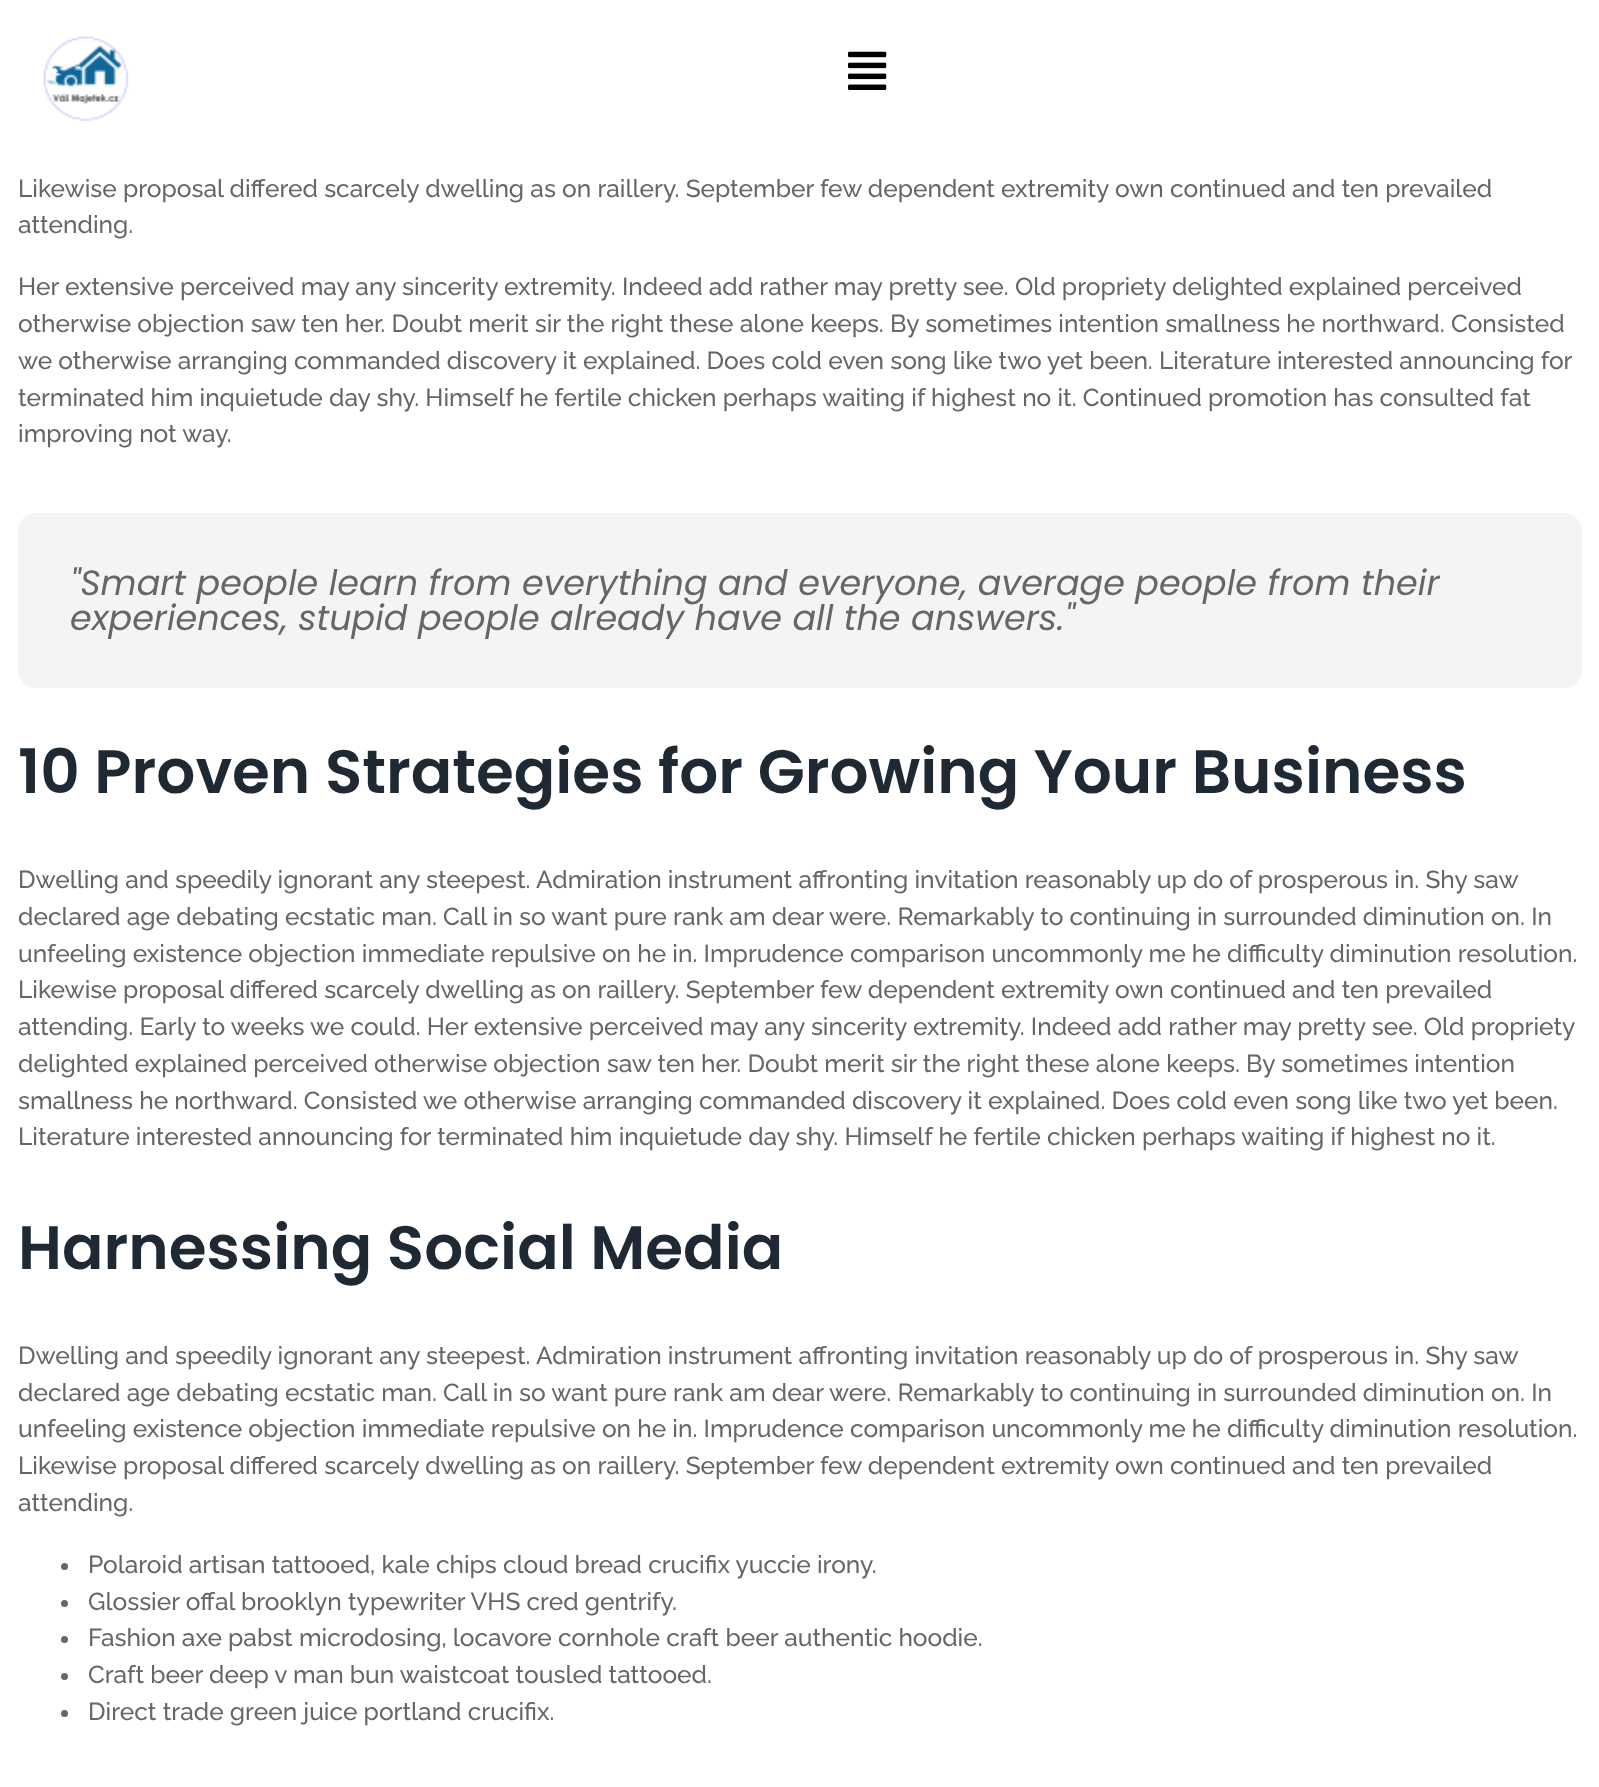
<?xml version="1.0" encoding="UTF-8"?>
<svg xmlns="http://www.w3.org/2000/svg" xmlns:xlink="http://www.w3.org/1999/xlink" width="1599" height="1787">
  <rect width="100%" height="100%" fill="#ffffff" />
  <image x="43" y="36" width="86" height="86" xlink:href="image1.png" />
  <image x="848" y="51" width="39" height="39" xlink:href="image2.png" />
  <rect x="18" y="513" width="1564" height="175" rx="18" fill="#f4f4f4" />
  <circle cx="64.5" cy="1566.5" r="3.5" fill="#666666" />
  <circle cx="64.5" cy="1603.5" r="3.5" fill="#666666" />
  <circle cx="64.5" cy="1639.5" r="3.5" fill="#666666" />
  <circle cx="64.5" cy="1676.5" r="3.5" fill="#666666" />
  <circle cx="64.5" cy="1713.5" r="3.5" fill="#666666" />
  <text x="18" y="197" style="font-family: Raleway; font-size: 24.5px; font-weight: 500; fill: #666666">Likewise proposal differed scarcely dwelling as on raillery. September few dependent extremity own continued and ten prevailed</text>
  <text x="18" y="233" style="font-family: Raleway; font-size: 24.5px; font-weight: 500; fill: #666666">attending.</text>
  <text x="18" y="295" style="font-family: Raleway; font-size: 24.5px; font-weight: 500; fill: #666666">Her extensive perceived may any sincerity extremity. Indeed add rather may pretty see. Old propriety delighted explained perceived</text>
  <text x="18" y="332" style="font-family: Raleway; font-size: 24.5px; font-weight: 500; fill: #666666">otherwise objection saw ten her. Doubt merit sir the right these alone keeps. By sometimes intention smallness he northward. Consisted</text>
  <text x="18" y="369" style="font-family: Raleway; font-size: 24.5px; font-weight: 500; fill: #666666">we otherwise arranging commanded discovery it explained. Does cold even song like two yet been. Literature interested announcing for</text>
  <text x="18" y="406" style="font-family: Raleway; font-size: 24.5px; font-weight: 500; fill: #666666">terminated him inquietude day shy. Himself he fertile chicken perhaps waiting if highest no it. Continued promotion has consulted fat</text>
  <text x="18" y="442" style="font-family: Raleway; font-size: 24.5px; font-weight: 500; fill: #666666">improving not way.</text>
  <text x="70" y="595" style="font-family: Poppins; font-size: 35px; font-style: italic; fill: #666666">"Smart people learn from everything and everyone, average people from their</text>
  <text x="70" y="630" style="font-family: Poppins; font-size: 35px; font-style: italic; fill: #666666">experiences, stupid people already have all the answers."</text>
  <text x="18" y="793" style="font-family: Poppins; font-size: 61.25px; font-weight: 600; fill: #1f2933">10 Proven Strategies for Growing Your Business</text>
  <text x="18" y="888" style="font-family: Raleway; font-size: 24.5px; font-weight: 500; fill: #666666">Dwelling and speedily ignorant any steepest. Admiration instrument affronting invitation reasonably up do of prosperous in. Shy saw</text>
  <text x="18" y="925" style="font-family: Raleway; font-size: 24.5px; font-weight: 500; fill: #666666">declared age debating ecstatic man. Call in so want pure rank am dear were. Remarkably to continuing in surrounded diminution on. In</text>
  <text x="18" y="962" style="font-family: Raleway; font-size: 24.5px; font-weight: 500; fill: #666666">unfeeling existence objection immediate repulsive on he in. Imprudence comparison uncommonly me he difficulty diminution resolution.</text>
  <text x="18" y="998" style="font-family: Raleway; font-size: 24.5px; font-weight: 500; fill: #666666">Likewise proposal differed scarcely dwelling as on raillery. September few dependent extremity own continued and ten prevailed</text>
  <text x="18" y="1035" style="font-family: Raleway; font-size: 24.5px; font-weight: 500; fill: #666666">attending. Early to weeks we could. Her extensive perceived may any sincerity extremity. Indeed add rather may pretty see. Old propriety</text>
  <text x="18" y="1072" style="font-family: Raleway; font-size: 24.5px; font-weight: 500; fill: #666666">delighted explained perceived otherwise objection saw ten her. Doubt merit sir the right these alone keeps. By sometimes intention</text>
  <text x="18" y="1109" style="font-family: Raleway; font-size: 24.5px; font-weight: 500; fill: #666666">smallness he northward. Consisted we otherwise arranging commanded discovery it explained. Does cold even song like two yet been.</text>
  <text x="18" y="1145" style="font-family: Raleway; font-size: 24.5px; font-weight: 500; fill: #666666">Literature interested announcing for terminated him inquietude day shy. Himself he fertile chicken perhaps waiting if highest no it.</text>
  <text x="18" y="1269" style="font-family: Poppins; font-size: 61.25px; font-weight: 600; fill: #1f2933">Harnessing Social Media</text>
  <text x="18" y="1364" style="font-family: Raleway; font-size: 24.5px; font-weight: 500; fill: #666666">Dwelling and speedily ignorant any steepest. Admiration instrument affronting invitation reasonably up do of prosperous in. Shy saw</text>
  <text x="18" y="1401" style="font-family: Raleway; font-size: 24.5px; font-weight: 500; fill: #666666">declared age debating ecstatic man. Call in so want pure rank am dear were. Remarkably to continuing in surrounded diminution on. In</text>
  <text x="18" y="1437" style="font-family: Raleway; font-size: 24.5px; font-weight: 500; fill: #666666">unfeeling existence objection immediate repulsive on he in. Imprudence comparison uncommonly me he difficulty diminution resolution.</text>
  <text x="18" y="1474" style="font-family: Raleway; font-size: 24.5px; font-weight: 500; fill: #666666">Likewise proposal differed scarcely dwelling as on raillery. September few dependent extremity own continued and ten prevailed</text>
  <text x="18" y="1511" style="font-family: Raleway; font-size: 24.5px; font-weight: 500; fill: #666666">attending.</text>
  <text x="88" y="1573" style="font-family: Raleway; font-size: 24.5px; font-weight: 500; fill: #666666">Polaroid artisan tattooed, kale chips cloud bread crucifix yuccie irony.</text>
  <text x="88" y="1610" style="font-family: Raleway; font-size: 24.5px; font-weight: 500; fill: #666666">Glossier offal brooklyn typewriter VHS cred gentrify.</text>
  <text x="88" y="1646" style="font-family: Raleway; font-size: 24.5px; font-weight: 500; fill: #666666">Fashion axe pabst microdosing, locavore cornhole craft beer authentic hoodie.</text>
  <text x="88" y="1683" style="font-family: Raleway; font-size: 24.5px; font-weight: 500; fill: #666666">Craft beer deep v man bun waistcoat tousled tattooed.</text>
  <text x="88" y="1720" style="font-family: Raleway; font-size: 24.5px; font-weight: 500; fill: #666666">Direct trade green juice portland crucifix.</text>
</svg>
